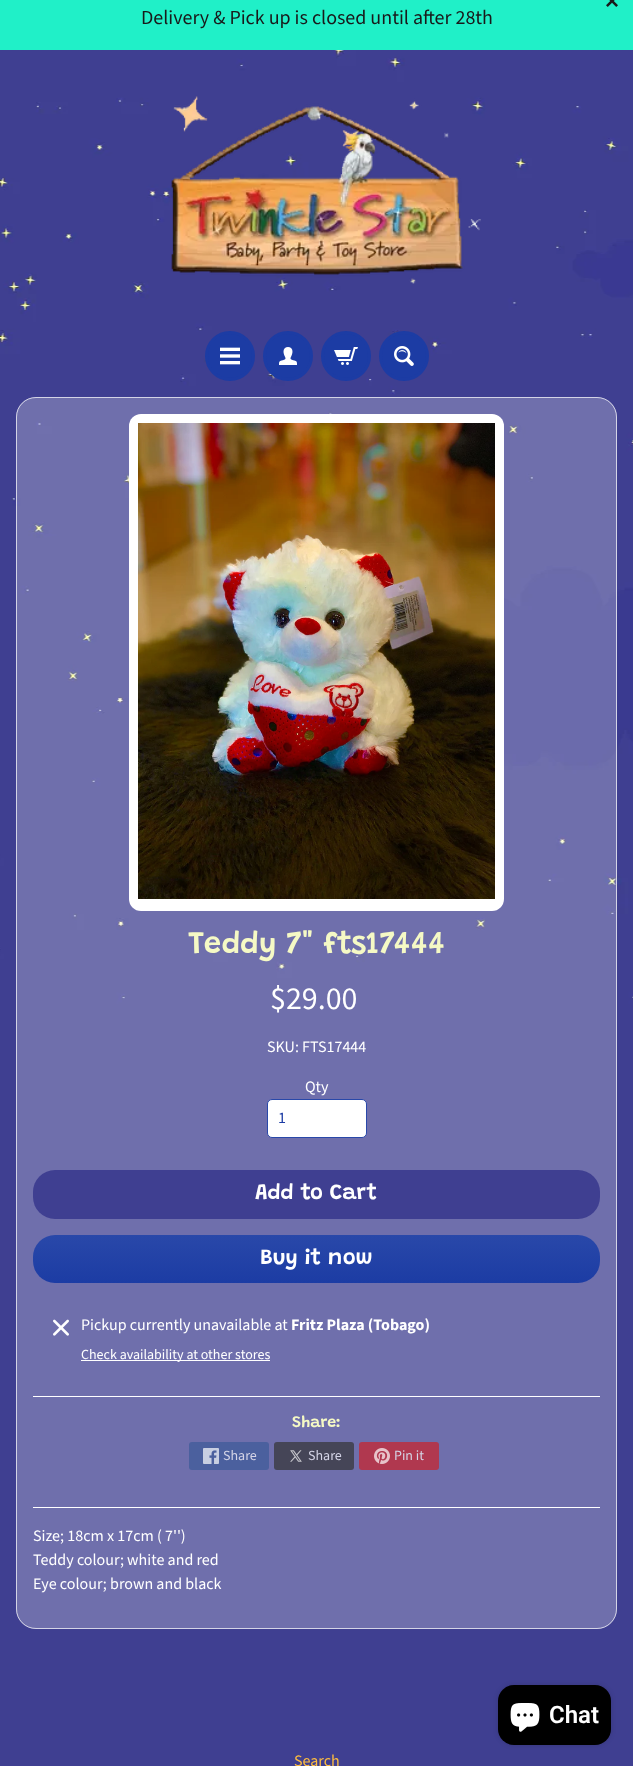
<?xml version="1.0" encoding="UTF-8"?>
<svg xmlns="http://www.w3.org/2000/svg" xmlns:xlink="http://www.w3.org/1999/xlink" width="633" height="1766">
  <defs>
    <linearGradient id="g1" gradientUnits="userSpaceOnUse" x1="317" y1="1235" x2="317" y2="1283"><stop offset="0" stop-color="#2948a9" /><stop offset="1" stop-color="#1c3ca4" /></linearGradient>
  </defs>
  <rect width="100%" height="100%" fill="#3f3f91" />
  <image x="0" y="50" width="633" height="955" xlink:href="image1.png" />
  <rect width="633" height="50" fill="#20f0c8" />
  <image x="606" y="0" width="12" height="7" xlink:href="image2.png" />
  <image x="171" y="96" width="310" height="188" xlink:href="image3.png" />
  <circle cx="230" cy="356" r="23.5" fill="#1c3ca4" stroke="#1c3ca4" stroke-width="3" />
  <image x="220" y="347" width="20" height="18" xlink:href="image4.png" />
  <circle cx="288" cy="356" r="23.5" fill="#1c3ca4" stroke="#1c3ca4" stroke-width="3" />
  <image x="279" y="347" width="18" height="18" xlink:href="image5.png" />
  <circle cx="346" cy="356" r="23.5" fill="#1c3ca4" stroke="#1c3ca4" stroke-width="3" />
  <image x="334" y="347" width="24" height="18" xlink:href="image6.png" />
  <circle cx="404" cy="356" r="23.5" fill="#1c3ca4" stroke="#1c3ca4" stroke-width="3" />
  <image x="394" y="346" width="20" height="20" xlink:href="image7.png" />
  <rect x="16" y="397" width="601" height="1232" rx="20" fill="#ffffff" fill-opacity="0.25" />
  <rect x="16.5" y="397.5" width="600" height="1231" rx="19.5" fill="none" stroke="#ffffff" stroke-opacity="0.7" />
  <rect x="129" y="414" width="375" height="497" rx="12" fill="#ffffff" />
  <image x="138" y="423" width="357" height="476" xlink:href="image8.png" />
  <rect x="267.5" y="1099.5" width="99" height="38" rx="4.5" fill="#ffffff" stroke="#2948a9" />
  <rect x="33" y="1170" width="567" height="49" rx="22" fill="#3f3f91" />
  <rect x="33" y="1235" width="567" height="48" rx="22" fill="url(#g1)" />
  <image x="53" y="1319" width="16" height="17" xlink:href="image9.png" />
  <rect x="81" y="1360" width="189" height="1" fill="#ffffff" />
  <rect x="33" y="1396" width="567" height="1" fill="#ffffff" />
  <rect x="189" y="1442" width="80" height="28" rx="3" fill="#4b609e" />
  <image x="203" y="1448" width="16" height="16" xlink:href="image10.png" />
  <rect x="274" y="1442" width="80" height="28" rx="3" fill="#454557" />
  <image x="290" y="1450" width="12" height="12" xlink:href="image11.png" />
  <rect x="359" y="1442" width="80" height="28" rx="3" fill="#b0384f" />
  <image x="374" y="1448" width="16" height="16" xlink:href="image12.png" />
  <rect x="33" y="1507" width="567" height="1" fill="#ffffff" />
  <rect x="498" y="1685" width="113" height="60" rx="16" fill="#000000" fill-opacity="0.15" filter="blur(2.5px)" />
  <rect x="498" y="1685" width="113" height="60" rx="16" fill="#000000" />
  <image x="510" y="1703" width="30" height="29" xlink:href="image13.png" />
  <text x="141" y="24" style="font-family: Source Sans Pro; font-size: 20px; fill: #19191a">Delivery &amp; Pick up is closed until after 28th</text>
  <text x="188" y="953" style="font-family: Grandstander; font-size: 31.25px; font-weight: 600; fill: #f5f9c5">Teddy 7" fts17444</text>
  <text x="270" y="1009" style="font-family: Source Sans Pro; font-size: 32px; fill: #ffffff">$29.00</text>
  <text x="267" y="1052" style="font-family: Source Sans Pro; font-size: 16px; fill: #ffffff">SKU: FTS17444</text>
  <text x="305" y="1092" style="font-family: Source Sans Pro; font-size: 16px; fill: #ffffff">Qty</text>
  <text x="278" y="1123" style="font-family: Source Sans Pro; font-size: 16px; fill: #1c3ca4">1</text>
  <text x="255" y="1199" style="font-family: Grandstander; font-size: 22px; font-weight: 600; fill: #ffffff">Add to Cart</text>
  <text x="260" y="1264" style="font-family: Grandstander; font-size: 22px; font-weight: 600; fill: #ffffff">Buy it now</text>
  <text x="81" y="1330" style="font-family: Source Sans Pro; font-size: 16px; fill: #ffffff">Pickup currently unavailable at</text>
  <text x="291" y="1330" style="font-family: Source Sans Pro; font-size: 16px; font-weight: bold; fill: #ffffff">Fritz Plaza (Tobago)</text>
  <text x="81" y="1359" style="font-family: Source Sans Pro; font-size: 14px; fill: #ffffff">Check availability at other stores</text>
  <text x="292" y="1427" style="font-family: Grandstander; font-size: 16px; font-weight: 600; fill: #f5f9c5">Share:</text>
  <text x="223" y="1460" style="font-family: Source Sans Pro; font-size: 14px; fill: #d4d4e6">Share</text>
  <text x="308" y="1460" style="font-family: Source Sans Pro; font-size: 14px; fill: #d4d4e6">Share</text>
  <text x="394" y="1460" style="font-family: Source Sans Pro; font-size: 14px; fill: #d4d4e6">Pin it</text>
  <text x="33" y="1541" style="font-family: Source Sans Pro; font-size: 16px; fill: #ffffff">Size; 18cm x 17cm ( 7'')</text>
  <text x="33" y="1565" style="font-family: Source Sans Pro; font-size: 16px; fill: #ffffff">Teddy colour; white and red</text>
  <text x="33" y="1589" style="font-family: Source Sans Pro; font-size: 16px; fill: #ffffff">Eye colour; brown and black</text>
  <text x="549" y="1723" style="font-family: Roboto; font-size: 24px; font-weight: 600; fill: #ffffff">Chat</text>
  <text x="294" y="1766" style="font-family: Source Sans Pro; font-size: 16px; fill: #ffbd3e">Search</text>
</svg>
